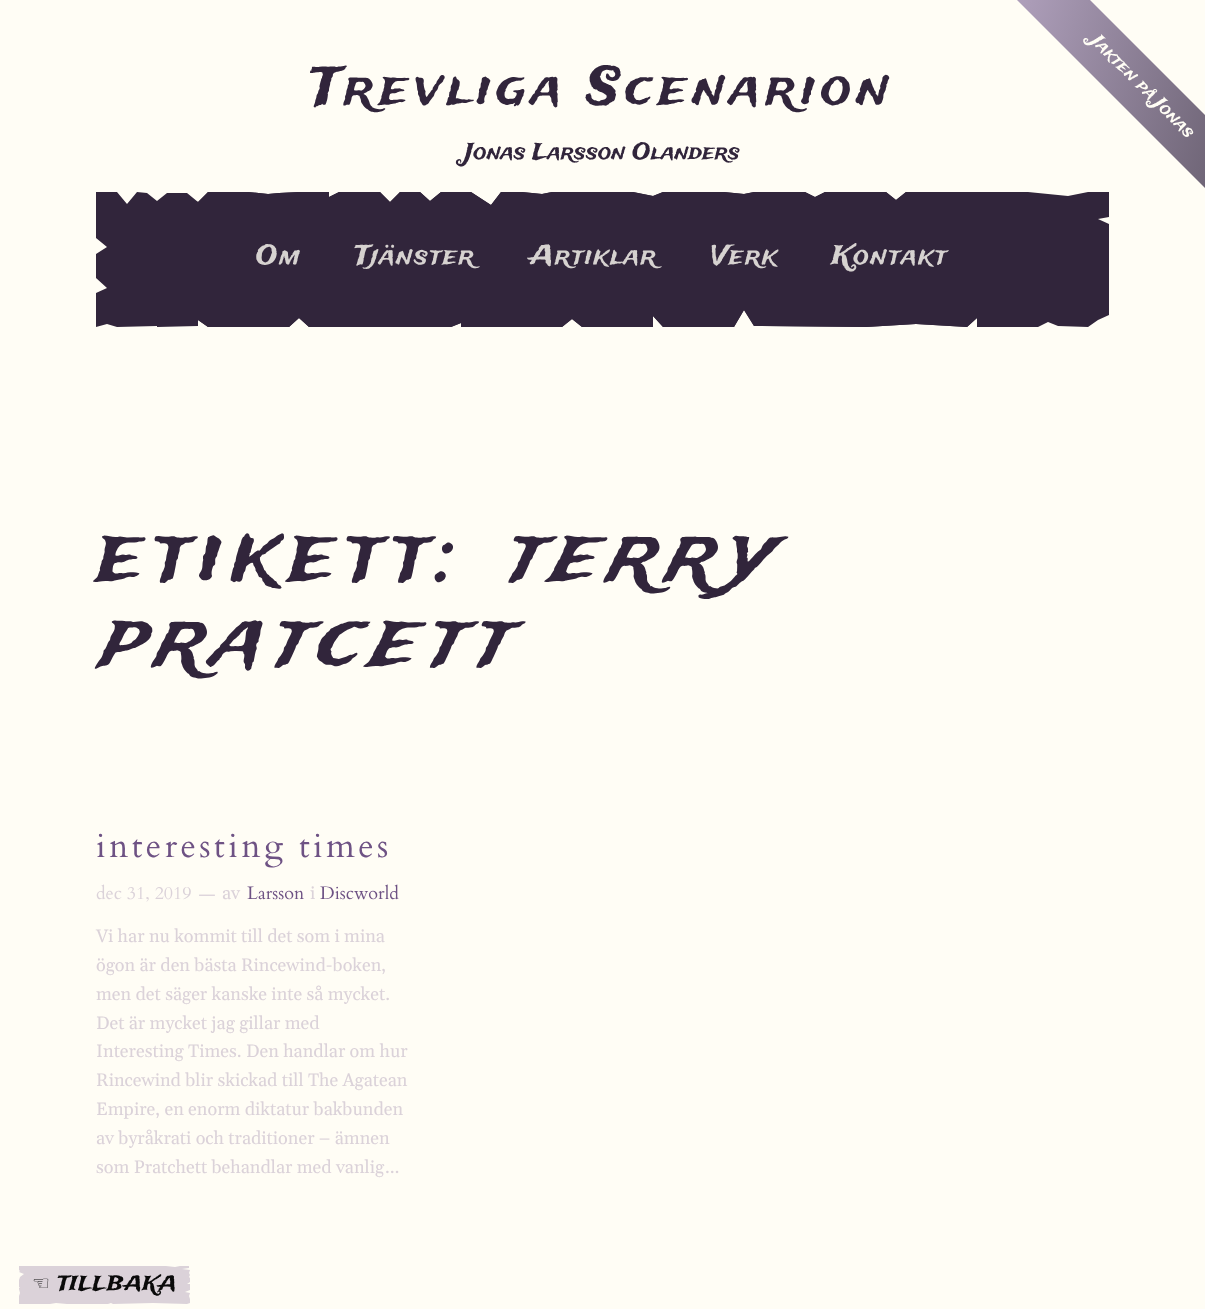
<?xml version="1.0" encoding="UTF-8"?>
<svg xmlns="http://www.w3.org/2000/svg" xmlns:xlink="http://www.w3.org/1999/xlink" width="1205" height="1309">
  <defs>
    <linearGradient id="g1" gradientUnits="userSpaceOnUse" x1="972" y1="33" x2="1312" y2="143"><stop offset="0" stop-color="#b7a7c4" /><stop offset="1" stop-color="#58505e" /></linearGradient>
  </defs>
  <rect width="100%" height="100%" fill="#fffdf5" />
  <path d="M 96 192 v 46 l 11 9 l -11 7 v 24 l 11 10 l -11 5 v 34 l 11 -3 l 10 3 l 40 -1 v 1 l 41 -1 v -6 l 10 7 h 81 l 10 -9 l 10 9 h 142 l 10 -4 v 4 h 101 l 10 -8 l 10 8 h 71 v -11 l 10 11 h 71 l 10 -17 l 10 16 l 112 1 l 50 -3 l 51 3 l 10 -9 v 9 h 61 l 10 -5 l 10 4 l 30 1 l 10 -7 l 11 -5 v -91 l -11 -5 l 11 -2 v -25 h -21 l -20 4 l -40 -4 h -122 l -10 8 l -10 -8 h -61 l -10 5 l -10 -5 h -51 l -10 2 l -20 -2 h -61 l -10 4 l -20 -4 h -81 l -10 2 l -20 -2 h -21 l -10 13 l -20 -13 h -30 l -11 9 l -10 -9 h -20 l -10 10 l -10 -10 h -41 l -10 5 v -5 h -30 l -20 1 l -11 1 l -20 -2 h -40 l -10 10 l -11 -9 h -20 l -10 8 l -10 -8 l -10 -1 l -10 12 l -10 -12 z" fill="#31253b" />
  <path d="M 196 326 v -125 l 2 1 l 10 -10 h 40 l 20 2 l 11 -1 l 20 -1 h 30 v 5 l 10 -5 h 41 l 10 10 l 10 -10 h 20 l 10 9 l 11 -9 h 30 l 20 13 l 10 -13 h 21 l 20 2 l 10 -2 h 81 l 20 4 l 10 -4 h 61 l 20 2 l 10 -2 h 51 l 10 5 l 10 -5 h 61 l 10 8 l 10 -8 h 103 v 135 h -32 v -9 l -10 9 l -51 -3 l -50 3 l -112 -1 l -10 -16 l -10 17 h -71 l -10 -11 v 11 h -71 l -10 -8 l -10 8 h -101 v -4 l -10 4 h -142 l -10 -9 l -10 9 h -81 l -10 -7 v 6 z" fill="#31253b" />
  <path d="M 1032 -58 l 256 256 c 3 2 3 6 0 9 l -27 27 c -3 3 -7 3 -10 0 l -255 -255 c -3 -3 -3 -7 0 -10 l 27 -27 c 3 -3 7 -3 9 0 z" fill="url(#g1)" />
  <path d="M 20 1266 h 7 h 23 h 1 h 2 h 22 h 35 h 3 h 2 h 19 h 3 h 4 h 25 l 9 1 l 5 -1 h 9 v 2 l -7 1 l 8 1 l -1 3 l 1 2 l -1 2 l 1 1 v 4 l -3 2 h 3 v 6 l -5 2 l 5 1 l -1 3 l 1 3 v 4 l -3 1 l -34 -1 l -40 1 l -2 -1 l -3 1 h -41 l -11 -1 l -6 1 h -31 v -8 l 1 -3 l -1 -4 v -1 l 1 -1 h -1 v -7 l 1 -3 l 4 -3 l -5 -2 l 1 -1 l -1 -1 v -4 z" fill="#dbd2d9" />
  <text x="311" y="104" style="font-family: Trade Winds; font-size: 51.75px; letter-spacing: 5.2px; fill: #31253b">Trevliga Scenarion</text>
  <text x="465" y="159" style="font-family: Trade Winds; font-size: 22.5px; fill: #31253b">Jonas Larsson Olanders</text>
  <text x="256" y="264" style="font-family: Trade Winds; font-size: 26.5px; letter-spacing: 1.25px; fill: #d6d2d0">Om</text>
  <text x="355" y="264" style="font-family: Trade Winds; font-size: 26.5px; letter-spacing: 1.25px; fill: #d6d2d0">Tjänster</text>
  <text x="530" y="264" style="font-family: Trade Winds; font-size: 26.5px; letter-spacing: 1.25px; fill: #d6d2d0">Artiklar</text>
  <text x="711" y="264" style="font-family: Trade Winds; font-size: 26.5px; letter-spacing: 1.25px; fill: #d6d2d0">Verk</text>
  <text x="832" y="264" style="font-family: Trade Winds; font-size: 26.5px; letter-spacing: 1.25px; fill: #d6d2d0">Kontakt</text>
  <text x="1091" y="42" transform="rotate(45 1091 42)" style="font-family: Trade Winds; font-size: 18px; fill: #fffdf5">Jakten på Jonas</text>
  <text x="96" y="580" style="font-family: Trade Winds; font-size: 84.5px; letter-spacing: 8.5px; fill: #31253b">etikett:</text>
  <text x="501" y="580" style="font-family: Trade Winds; font-size: 84.5px; font-style: italic; letter-spacing: 8.5px; fill: #31253b">terry</text>
  <text x="96" y="665" style="font-family: Trade Winds; font-size: 84.5px; font-style: italic; letter-spacing: 8.5px; fill: #31253b">pratcett</text>
  <text x="96" y="857" style="font-family: Cardo; font-size: 34px; letter-spacing: 3.4px; fill: #6e5284">interesting times</text>
  <text x="96" y="899" style="font-family: Cardo; font-size: 18px; fill: #dbd2d9">dec 31, 2019</text>
  <text x="198" y="901" style="font-family: Gelasio; font-size: 21px; fill: #dbd2d9">—</text>
  <text x="222" y="899" style="font-family: Gelasio; font-size: 18px; fill: #dbd2d9">av</text>
  <text x="247" y="899" style="font-family: Cardo; font-size: 18px; fill: #6e5284">Larsson</text>
  <text x="310" y="899" style="font-family: Gelasio; font-size: 18px; fill: #dbd2d9">i</text>
  <text x="320" y="899" style="font-family: Cardo; font-size: 18px; fill: #6e5284">Discworld</text>
  <text x="96" y="942" style="font-family: Gelasio; font-size: 18px; fill: #dbd2d9">Vi har nu kommit till det som i mina</text>
  <text x="96" y="971" style="font-family: Gelasio; font-size: 18px; fill: #dbd2d9">ögon är den bästa Rincewind-boken,</text>
  <text x="96" y="1000" style="font-family: Gelasio; font-size: 18px; fill: #dbd2d9">men det säger kanske inte så mycket.</text>
  <text x="96" y="1029" style="font-family: Gelasio; font-size: 18px; fill: #dbd2d9">Det är mycket jag gillar med</text>
  <text x="96" y="1057" style="font-family: Gelasio; font-size: 18px; fill: #dbd2d9">Interesting Times. Den handlar om hur</text>
  <text x="96" y="1086" style="font-family: Gelasio; font-size: 18px; fill: #dbd2d9">Rincewind blir skickad till The Agatean</text>
  <text x="96" y="1115" style="font-family: Gelasio; font-size: 18px; fill: #dbd2d9">Empire, en enorm diktatur bakbunden</text>
  <text x="96" y="1144" style="font-family: Gelasio; font-size: 18px; fill: #dbd2d9">av byråkrati och traditioner – ämnen</text>
  <text x="96" y="1173" style="font-family: Gelasio; font-size: 18px; fill: #dbd2d9">som Pratchett behandlar med vanlig…</text>
  <text x="32" y="1290" style="font-family: DejaVu Sans; font-size: 20px; letter-spacing: 1px; fill: #0a0a0a">☜</text>
  <text x="58" y="1290" style="font-family: Trade Winds; font-size: 20px; letter-spacing: 1px; fill: #0a0a0a">TILLBAKA</text>
</svg>
